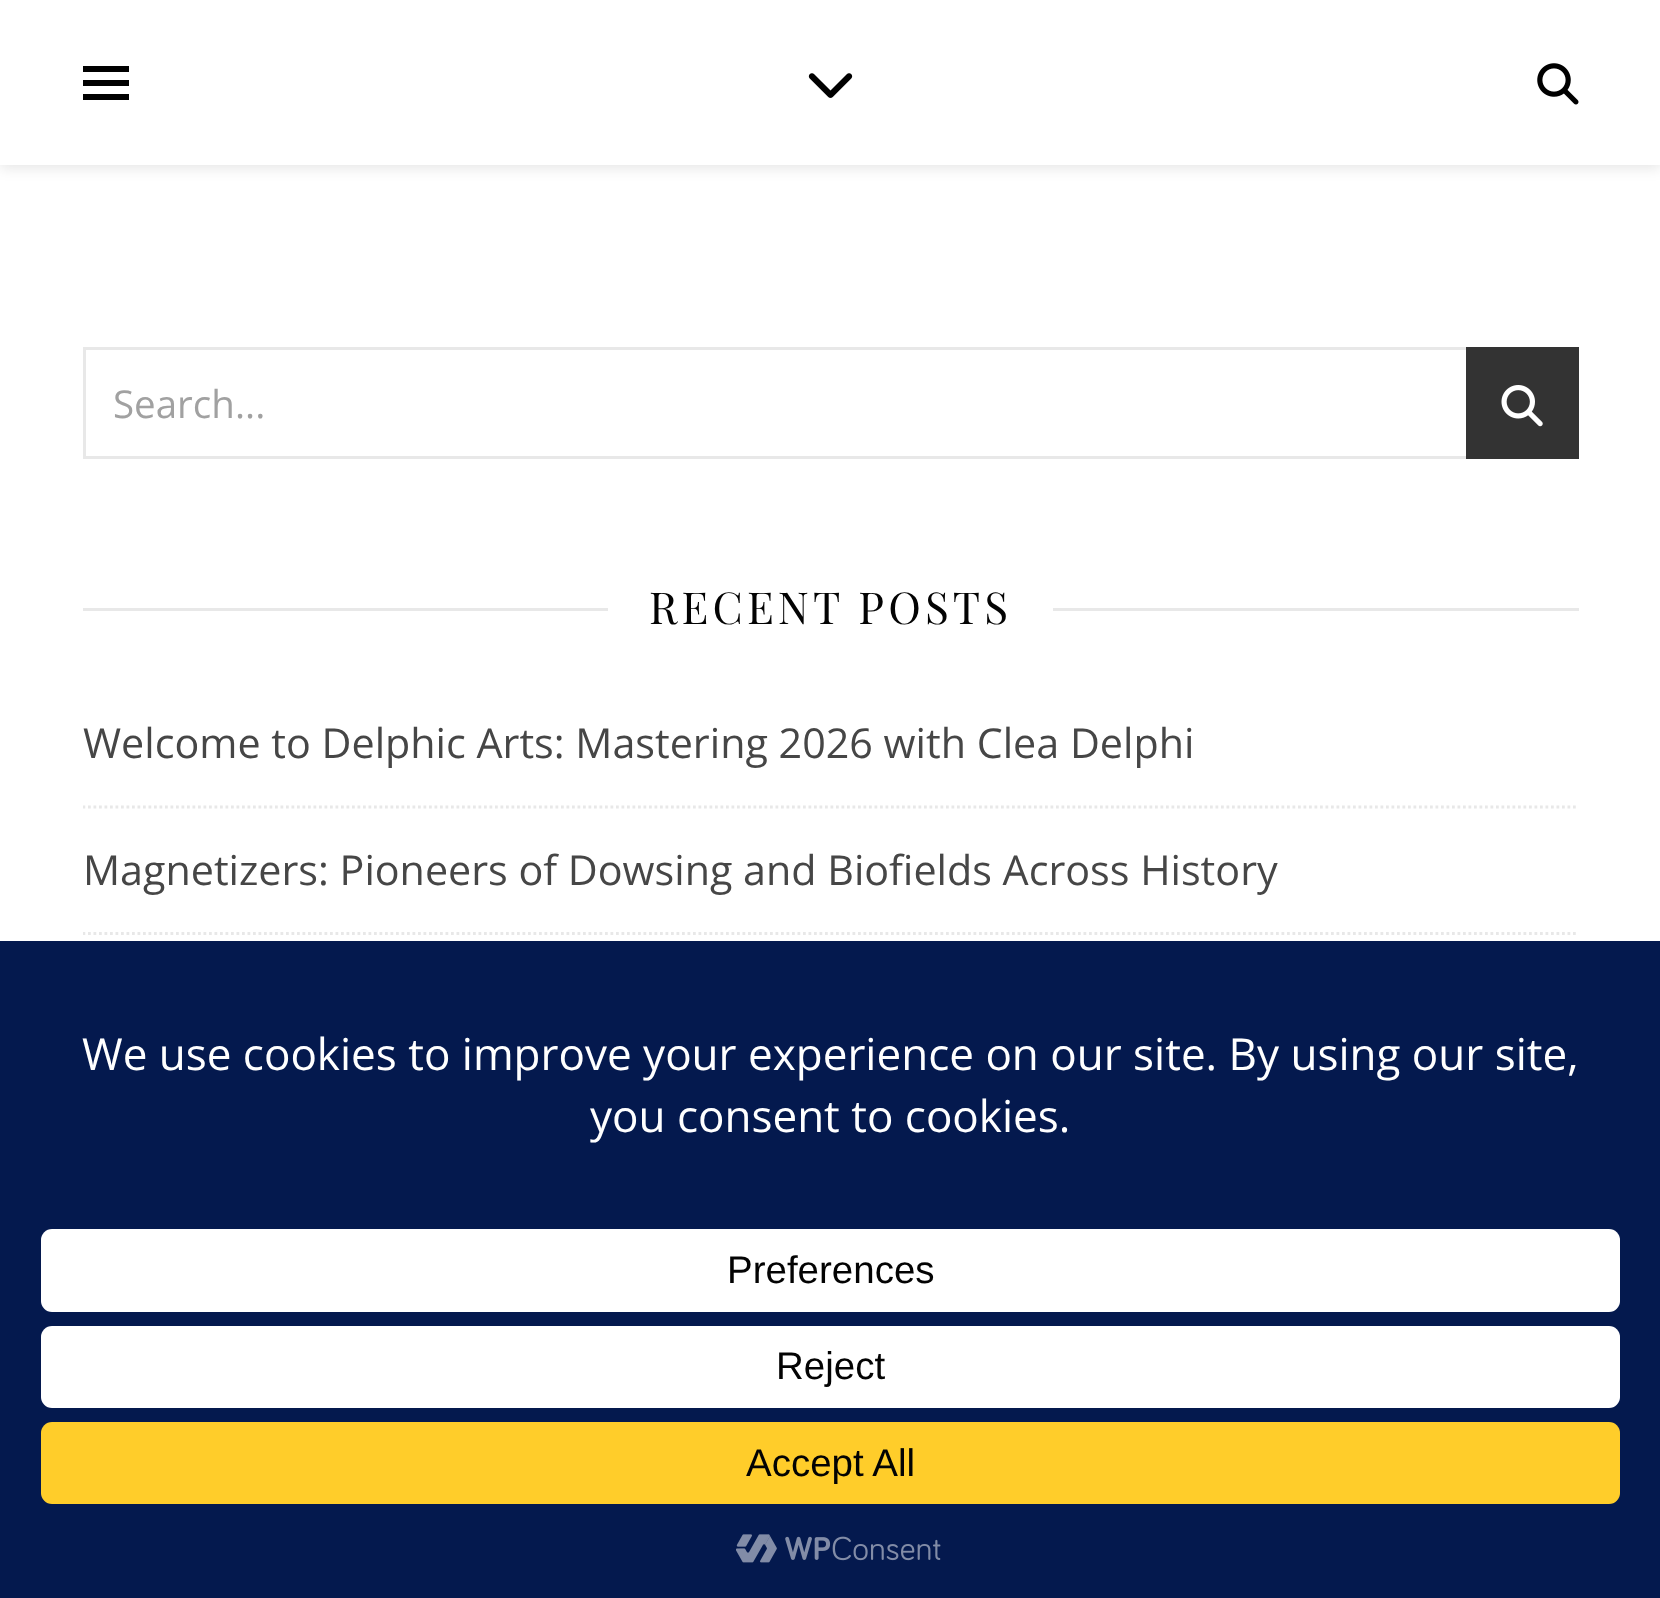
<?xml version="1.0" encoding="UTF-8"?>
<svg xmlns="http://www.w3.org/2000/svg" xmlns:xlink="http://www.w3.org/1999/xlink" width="1660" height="1598">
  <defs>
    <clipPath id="clip1"><rect x="83" y="569" width="1496" height="366" /></clipPath>
  </defs>
  <rect width="100%" height="100%" fill="#ffffff" />
  <rect y="3" width="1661" height="165" fill="#000000" fill-opacity="0.1" filter="blur(7px)" />
  <rect width="1660" height="165" fill="#ffffff" />
  <rect x="83" y="66" width="46" height="6" fill="#000000" />
  <rect x="83" y="80" width="46" height="6" fill="#000000" />
  <rect x="83" y="94" width="46" height="6" fill="#000000" />
  <image x="808" y="73" width="45" height="25" xlink:href="image1.png" />
  <image x="1537" y="63" width="42" height="42" xlink:href="image2.png" />
  <rect x="84.5" y="348.5" width="1493" height="109" fill="none" stroke="#e8e8e8" stroke-width="3" />
  <rect x="1466" y="347" width="113" height="112" fill="#333333" />
  <image x="1501" y="385" width="42" height="42" xlink:href="image3.png" />
  <rect x="83" y="608" width="525" height="3" fill="#e8e8e8" />
  <rect x="1053" y="608" width="526" height="3" fill="#e8e8e8" />
  <g clip-path="url(#clip1)">
    <path d="M 82.5 807 h 1496" fill="none" stroke="#e8e8e8" stroke-width="2.8" stroke-dasharray="2.75 2.75" />
    <path d="M 82.5 933.5 h 1496" fill="none" stroke="#e8e8e8" stroke-width="2.8" stroke-dasharray="2.75 2.75" />
  </g>
  <rect y="941" width="1660" height="657" fill="#04194e" />
  <rect x="41" y="1229" width="1579" height="83" rx="11" fill="#ffffff" />
  <rect x="41" y="1326" width="1579" height="82" rx="11" fill="#ffffff" />
  <rect x="41" y="1422" width="1579" height="82" rx="11" fill="#ffcd2a" />
  <image x="736" y="1534" width="205" height="29" xlink:href="image4.png" />
  <text x="113" y="418" style="font-family: Open Sans; font-size: 38.5px; fill: #a1a1a1">Search...</text>
  <text x="649" y="624" style="font-family: Playfair Display; font-size: 44px; letter-spacing: 4.1px; fill: #030303">RECENT POSTS</text>
  <text x="83" y="758" style="font-family: Open Sans; font-size: 41.25px; fill: #464646">Welcome to Delphic Arts: Mastering 2026 with Clea Delphi</text>
  <text x="83" y="885" style="font-family: Open Sans; font-size: 41.25px; fill: #464646">Magnetizers: Pioneers of Dowsing and Biofields Across History</text>
  <text x="82" y="1070" style="font-family: Open Sans; font-size: 44px; fill: #ffffff">We use cookies to improve your experience on our site. By using our site,</text>
  <text x="590" y="1132" style="font-family: Open Sans; font-size: 44px; fill: #ffffff">you consent to cookies.</text>
  <text x="727" y="1283" style="font-family: Liberation Sans; font-size: 38.5px; fill: #030303">Preferences</text>
  <text x="776" y="1379" style="font-family: Liberation Sans; font-size: 38.5px; fill: #030303">Reject</text>
  <text x="746" y="1476" style="font-family: Liberation Sans; font-size: 38.5px; fill: #030303">Accept All</text>
</svg>
